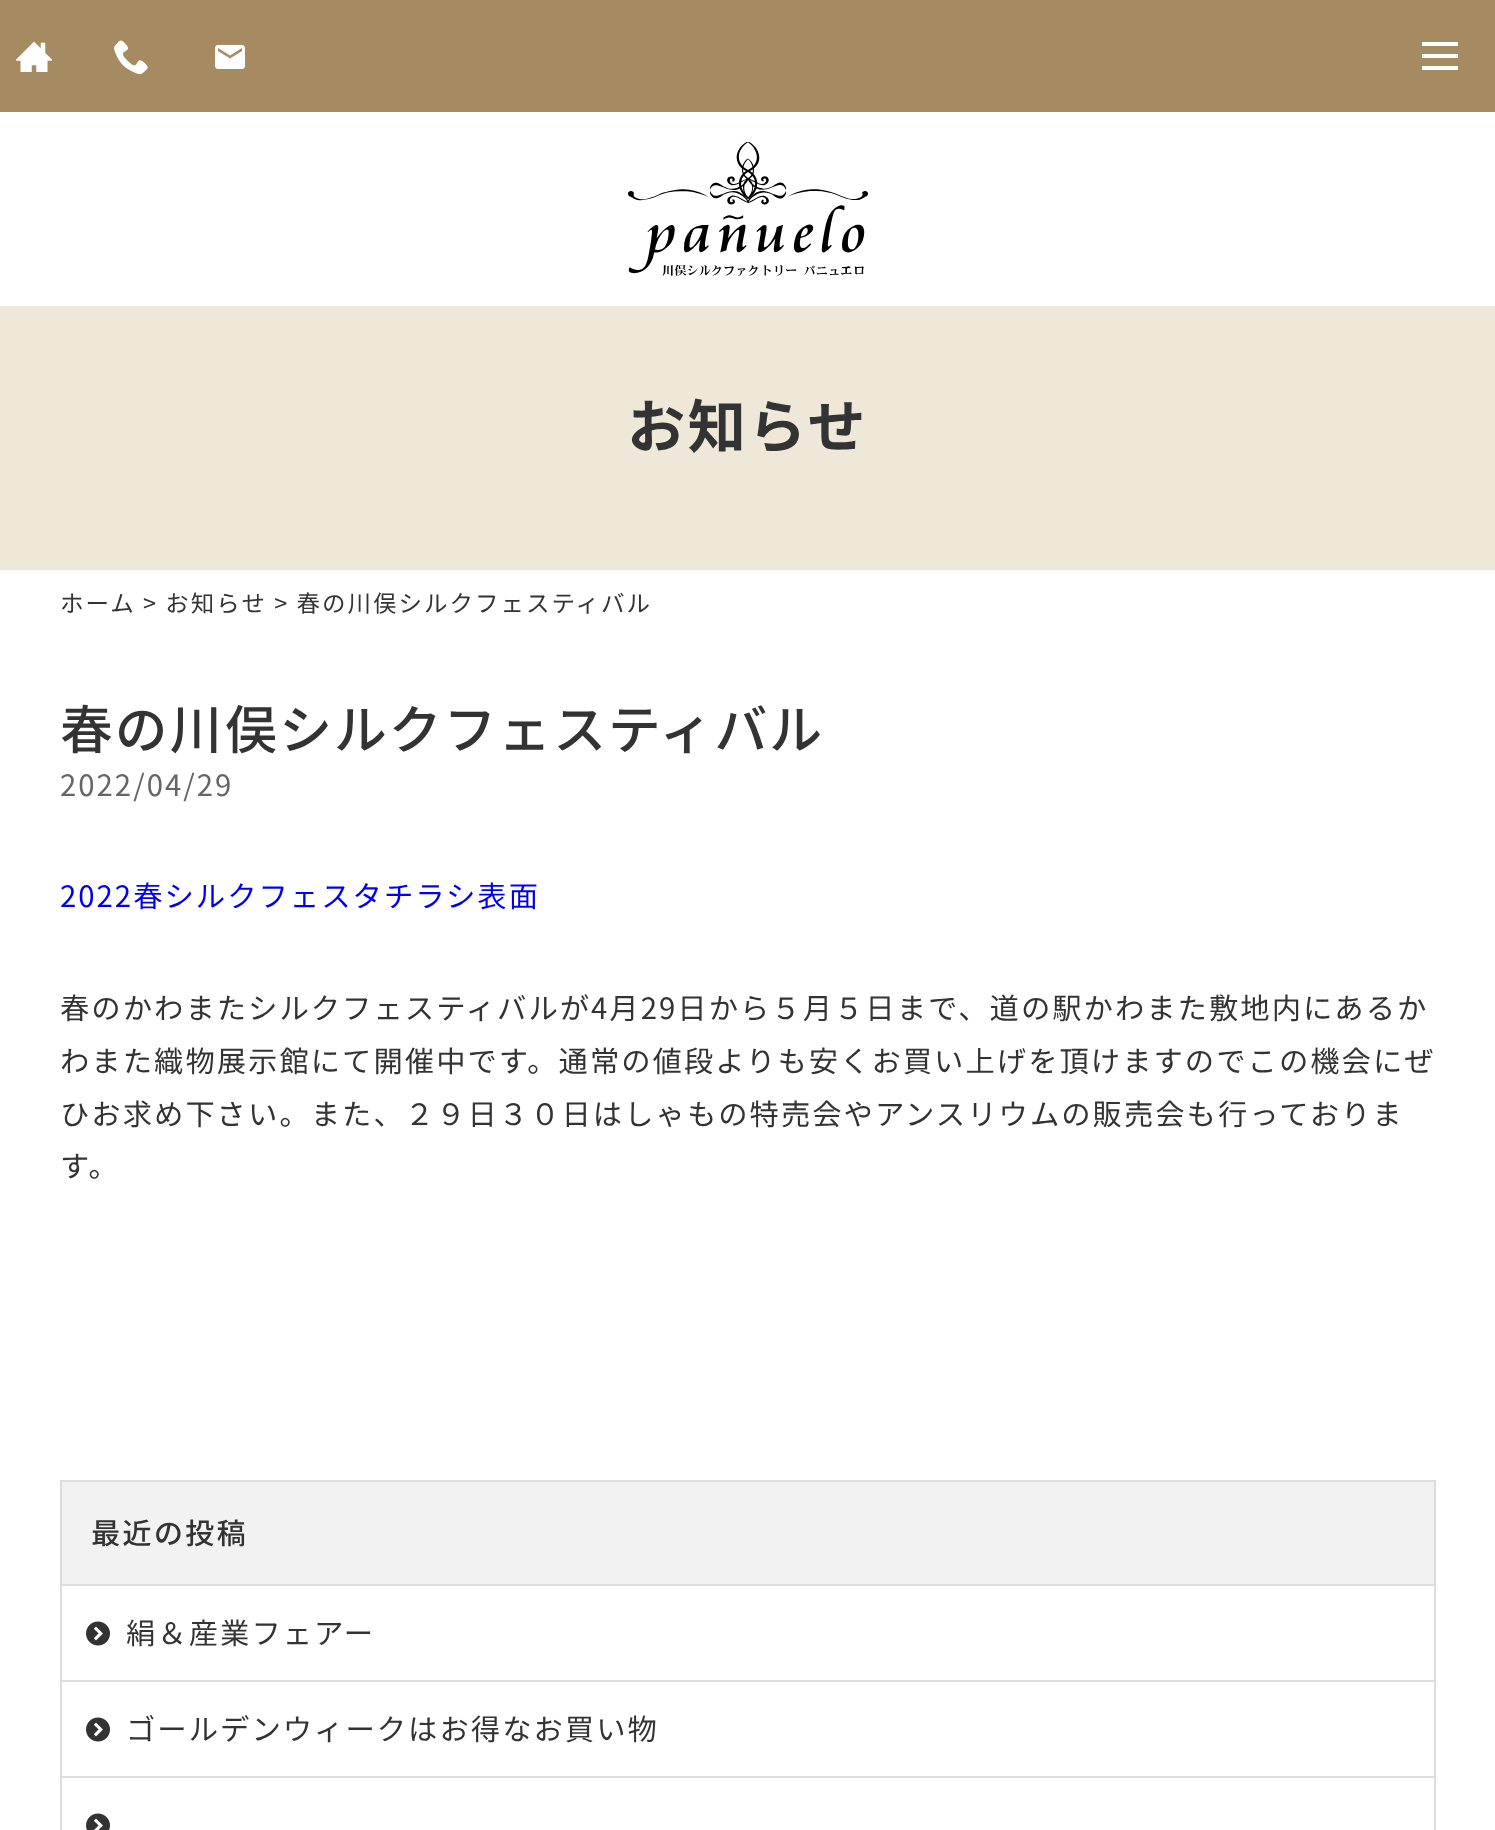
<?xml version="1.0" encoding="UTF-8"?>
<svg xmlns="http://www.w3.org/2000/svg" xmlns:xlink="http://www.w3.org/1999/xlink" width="1495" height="1830">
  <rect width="100%" height="100%" fill="#ffffff" />
  <rect width="1495" height="112" fill="#a68b62" />
  <image x="16" y="41" width="36" height="31" xlink:href="image1.png" />
  <image x="114" y="40" width="34" height="34" xlink:href="image2.png" />
  <image x="215" y="44" width="30" height="25" xlink:href="image3.png" />
  <image x="628" y="142" width="240" height="134" xlink:href="image4.png" />
  <rect x="1422" y="54" width="36" height="4" fill="#ffffff" />
  <rect x="1422" y="42" width="36" height="4" fill="#ffffff" />
  <rect x="1422" y="66" width="36" height="4" fill="#ffffff" />
  <rect y="306" width="1495" height="264" fill="#efe8d9" />
  <rect x="61" y="1481" width="1374" height="104" fill="#f2f2f2" stroke="#dddddd" stroke-width="2" />
  <rect x="1434" y="1586" width="2" height="244" fill="#dddddd" />
  <rect x="60" y="1680" width="1376" height="2" fill="#dddddd" />
  <rect x="60" y="1586" width="2" height="96" fill="#dddddd" />
  <image x="86" y="1621" width="24" height="25" xlink:href="image5.png" />
  <rect x="60" y="1776" width="1376" height="2" fill="#dddddd" />
  <rect x="60" y="1682" width="2" height="148" fill="#dddddd" />
  <image x="86" y="1717" width="24" height="25" xlink:href="image5.png" />
  <image x="86" y="1813" width="24" height="17" xlink:href="image6.png" />
  <text x="627" y="448" style="font-family: Noto Sans JP; font-size: 58.5px; font-weight: bold; letter-spacing: 2px; fill: #333333">お知らせ</text>
  <text x="60" y="612" style="font-family: Noto Sans JP; font-size: 23.5px; letter-spacing: 2px; fill: #333333">ホーム &gt; お知らせ &gt; 春の川俣シルクフェスティバル</text>
  <text x="60" y="749" style="font-family: Noto Sans JP; font-size: 52.8px; font-weight: 500; letter-spacing: 2px; fill: #333333">春の川俣シルクフェスティバル</text>
  <text x="60" y="796" style="font-family: Noto Sans JP; font-size: 29.35px; letter-spacing: 2px; fill: #666666">2022/04/29</text>
  <text x="60" y="907" style="font-family: Noto Sans JP; font-size: 29.35px; letter-spacing: 2px; fill: #0000ee">2022春シルクフェスタチラシ表面</text>
  <text x="60" y="1019" style="font-family: Noto Sans JP; font-size: 29.35px; letter-spacing: 2px; fill: #333333">春のかわまたシルクフェスティバルが4月29日から５月５日まで、道の駅かわまた敷地内にあるか</text>
  <text x="60" y="1072" style="font-family: Noto Sans JP; font-size: 29.35px; letter-spacing: 2px; fill: #333333">わまた織物展示館にて開催中です。通常の値段よりも安くお買い上げを頂けますのでこの機会にぜ</text>
  <text x="60" y="1125" style="font-family: Noto Sans JP; font-size: 29.35px; letter-spacing: 2px; fill: #333333">ひお求め下さい。また、２９日３０日はしゃもの特売会やアンスリウムの販売会も行っておりま</text>
  <text x="60" y="1177" style="font-family: Noto Sans JP; font-size: 29.35px; letter-spacing: 2px; fill: #333333">す。</text>
  <text x="91" y="1544" style="font-family: Noto Sans JP; font-size: 29.35px; font-weight: 500; letter-spacing: 2px; fill: #333333">最近の投稿</text>
  <text x="126" y="1644" style="font-family: Noto Sans JP; font-size: 29.35px; letter-spacing: 2px; fill: #333333">絹＆産業フェアー</text>
  <text x="126" y="1740" style="font-family: Noto Sans JP; font-size: 29.35px; letter-spacing: 2px; fill: #333333">ゴールデンウィークはお得なお買い物</text>
</svg>
